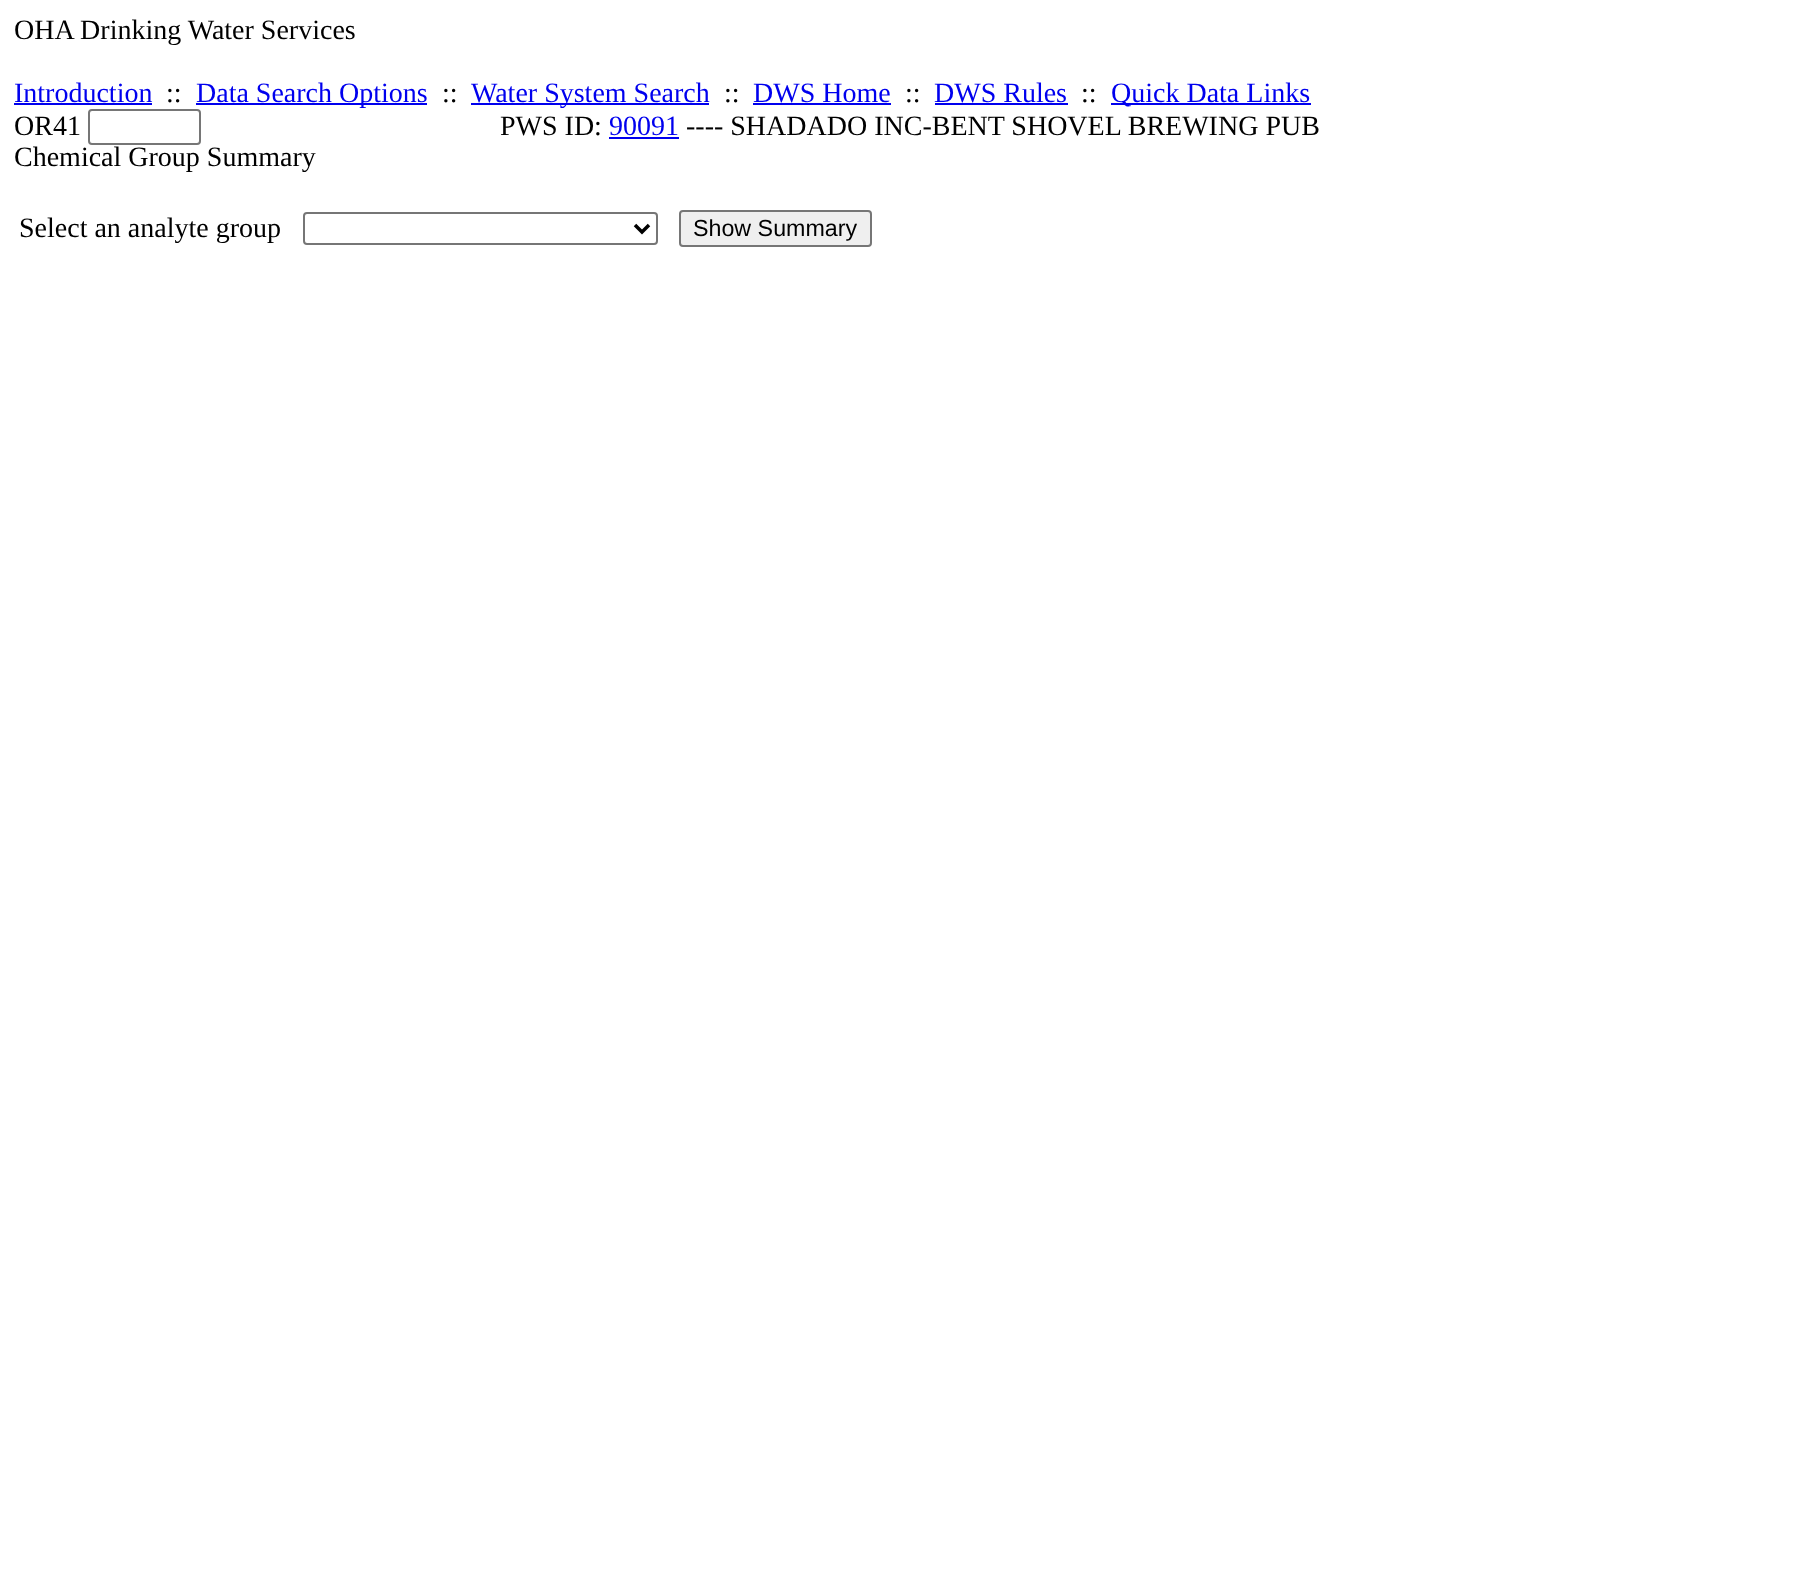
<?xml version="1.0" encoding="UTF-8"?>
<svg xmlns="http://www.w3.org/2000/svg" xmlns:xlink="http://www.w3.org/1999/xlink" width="1820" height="1572">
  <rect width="100%" height="100%" fill="#ffffff" />
  <rect x="14" y="103" width="138" height="2" fill="#0000ee" />
  <rect x="196" y="103" width="231" height="2" fill="#0000ee" />
  <rect x="471" y="103" width="238" height="2" fill="#0000ee" />
  <rect x="753" y="103" width="138" height="2" fill="#0000ee" />
  <rect x="935" y="103" width="133" height="2" fill="#0000ee" />
  <rect x="1111" y="103" width="200" height="2" fill="#0000ee" />
  <rect x="89" y="110" width="111" height="34" rx="3" fill="none" stroke="#767676" stroke-width="2" />
  <rect x="609" y="137" width="70" height="2" fill="#0000ee" />
  <rect x="304" y="213" width="353" height="31" rx="3" fill="none" stroke="#767676" stroke-width="2" />
  <path d="M 635 225 l 7 7 l 7 -7" fill="none" stroke="#000000" stroke-width="3.5" />
  <rect x="680" y="211" width="191" height="35" rx="3" fill="#efefef" stroke="#767676" stroke-width="2" />
  <text x="14" y="39" style="font-family: Liberation Serif; font-size: 28px; fill: #000000">OHA Drinking Water Services</text>
  <text x="14" y="102" style="font-family: Liberation Serif; font-size: 28px; fill: #0000ee">Introduction</text>
  <text x="166" y="102" style="font-family: Liberation Serif; font-size: 28px; fill: #000000">::</text>
  <text x="196" y="102" style="font-family: Liberation Serif; font-size: 28px; fill: #0000ee">Data Search Options</text>
  <text x="442" y="102" style="font-family: Liberation Serif; font-size: 28px; fill: #000000">::</text>
  <text x="471" y="102" style="font-family: Liberation Serif; font-size: 28px; fill: #0000ee">Water System Search</text>
  <text x="724" y="102" style="font-family: Liberation Serif; font-size: 28px; fill: #000000">::</text>
  <text x="753" y="102" style="font-family: Liberation Serif; font-size: 28px; fill: #0000ee">DWS Home</text>
  <text x="905" y="102" style="font-family: Liberation Serif; font-size: 28px; fill: #000000">::</text>
  <text x="934" y="102" style="font-family: Liberation Serif; font-size: 28px; fill: #0000ee">DWS Rules</text>
  <text x="1081" y="102" style="font-family: Liberation Serif; font-size: 28px; fill: #000000">::</text>
  <text x="1111" y="102" style="font-family: Liberation Serif; font-size: 28px; fill: #0000ee">Quick Data Links</text>
  <text x="14" y="135" style="font-family: Liberation Serif; font-size: 28px; fill: #000000">OR41</text>
  <text x="500" y="135" style="font-family: Liberation Serif; font-size: 28px; fill: #000000">PWS ID:</text>
  <text x="609" y="135" style="font-family: Liberation Serif; font-size: 28px; fill: #0000ee">90091</text>
  <text x="686" y="135" style="font-family: Liberation Serif; font-size: 28px; fill: #000000">---- SHADADO INC-BENT SHOVEL BREWING PUB</text>
  <text x="14" y="166" style="font-family: Liberation Serif; font-size: 28px; fill: #000000">Chemical Group Summary</text>
  <text x="19" y="237" style="font-family: Liberation Serif; font-size: 28px; fill: #000000">Select an analyte group</text>
  <text x="693" y="236" style="font-family: Liberation Sans; font-size: 23.25px; fill: #000000">Show Summary</text>
</svg>
